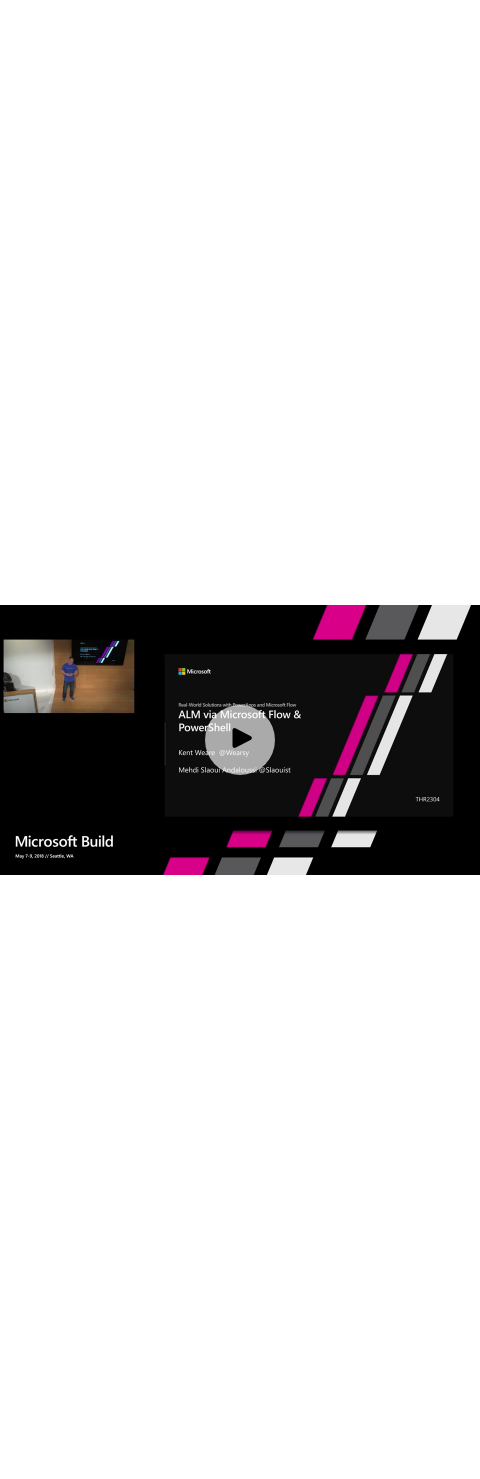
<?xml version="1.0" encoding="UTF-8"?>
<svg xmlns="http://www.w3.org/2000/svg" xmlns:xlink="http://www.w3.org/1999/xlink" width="480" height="1479">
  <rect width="100%" height="100%" fill="#ffffff" />
  <image x="0" y="605" width="480" height="270" xlink:href="image1.png" />
  <circle cx="240" cy="740" r="35" fill="#ffffff" fill-opacity="0.65" />
  <image x="232" y="728" width="20" height="20" xlink:href="image2.png" />
</svg>
